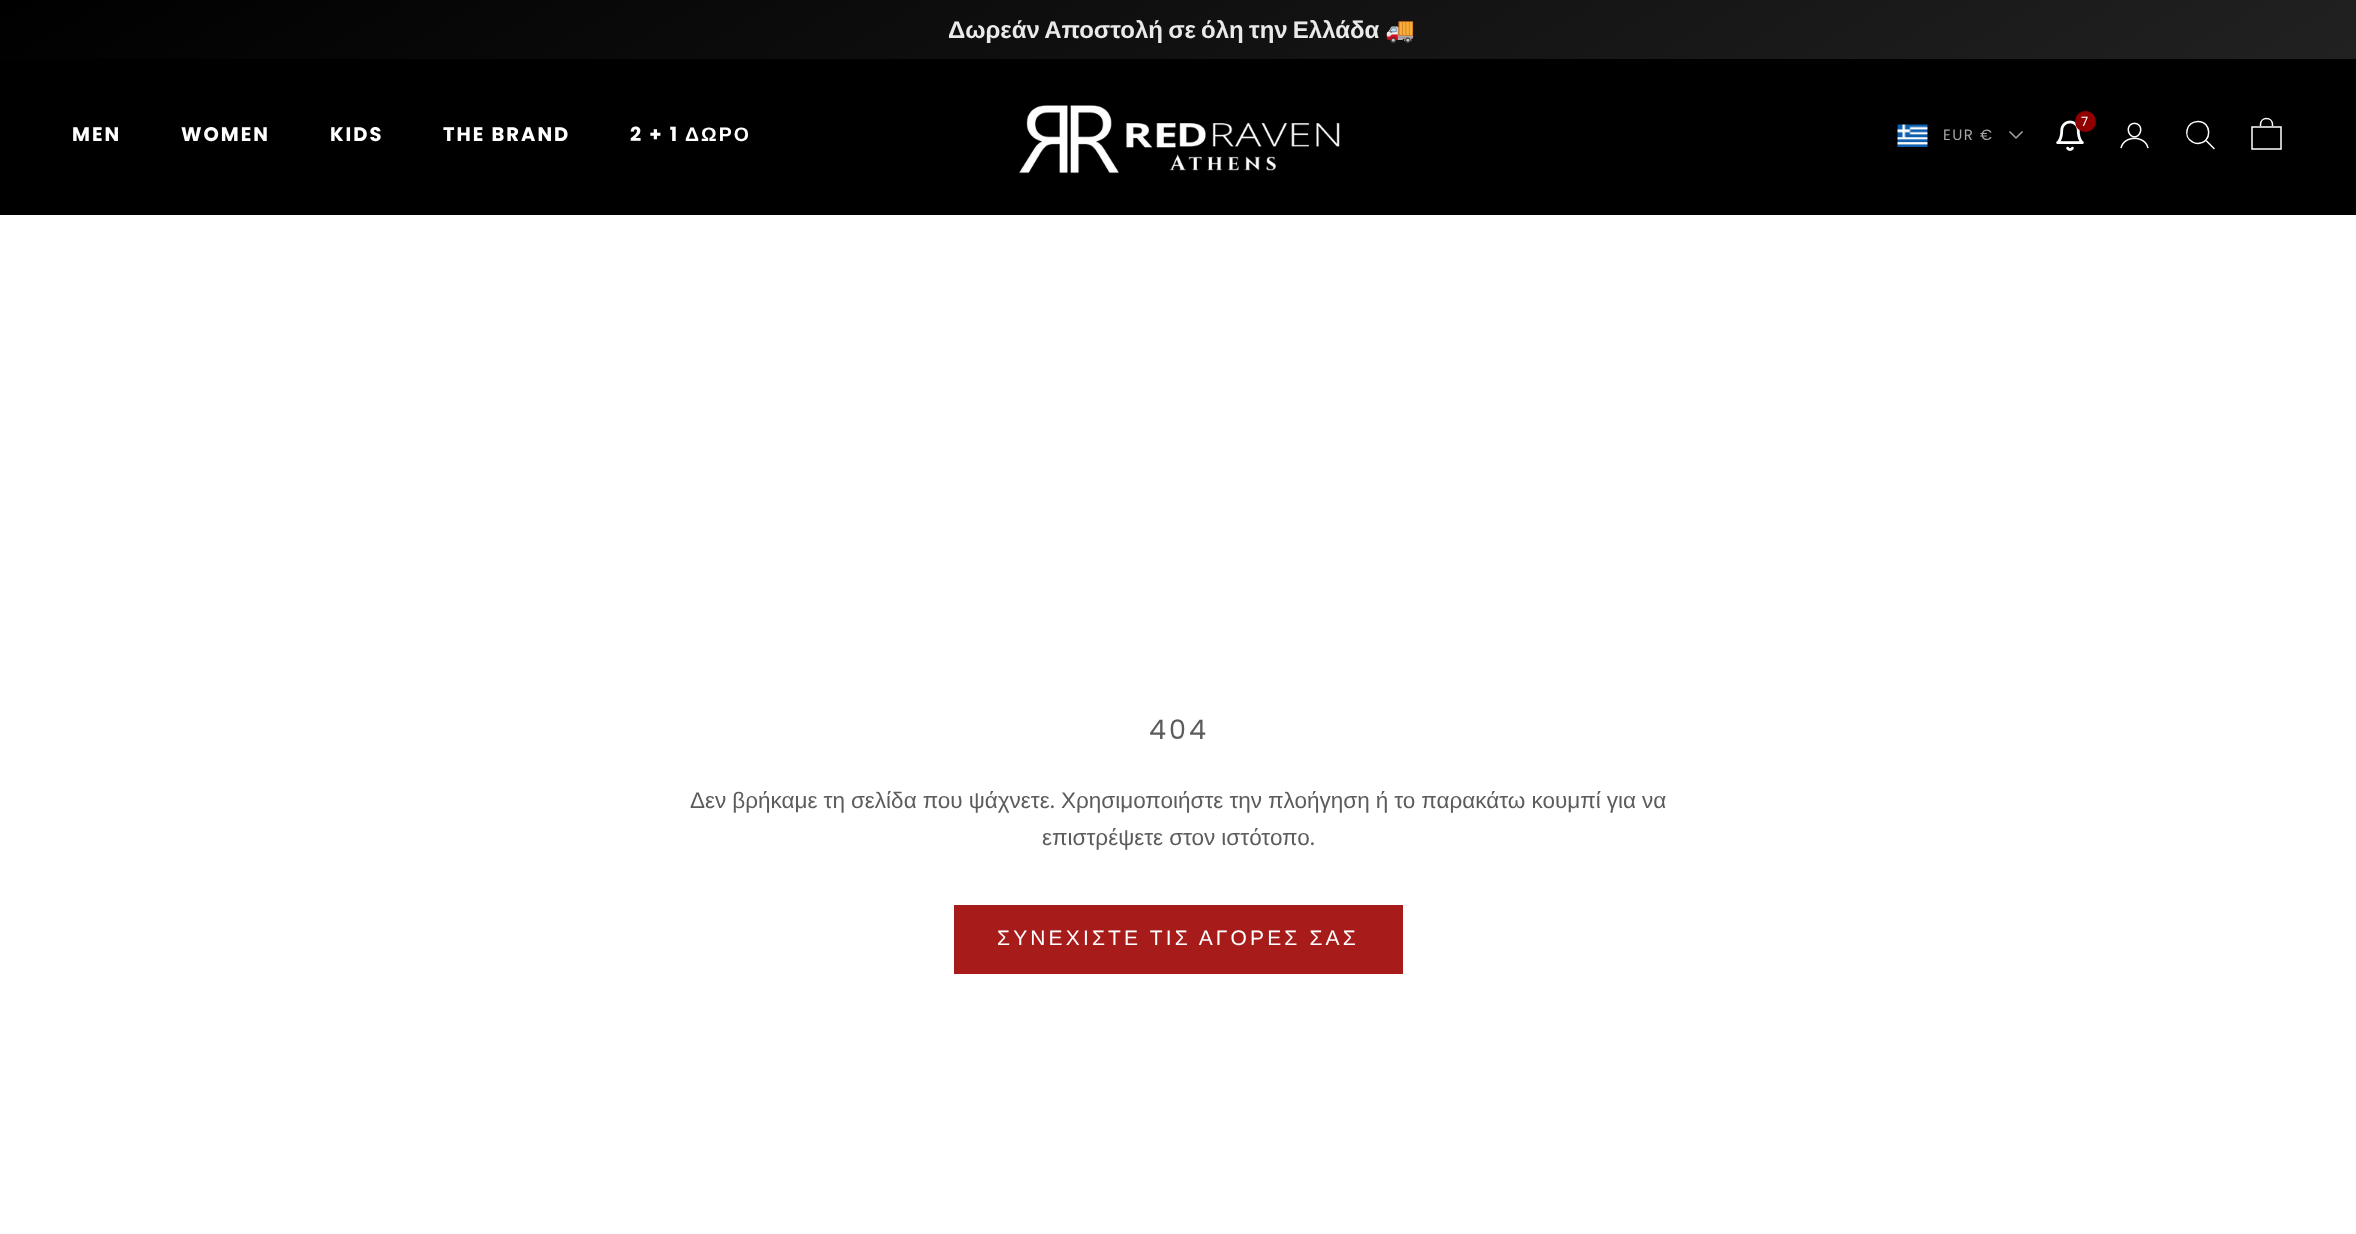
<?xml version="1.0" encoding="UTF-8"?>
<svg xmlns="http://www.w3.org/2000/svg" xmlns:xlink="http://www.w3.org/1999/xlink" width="2356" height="1234">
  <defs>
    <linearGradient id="g1" gradientUnits="userSpaceOnUse" x1="871" y1="-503" x2="1485" y2="561"><stop offset="0" stop-color="#000000" /><stop offset="1" stop-color="#212121" /></linearGradient>
  </defs>
  <rect width="100%" height="100%" fill="#ffffff" />
  <rect width="2356" height="59" fill="url(#g1)" />
  <rect y="59" width="2356" height="156" fill="#000000" />
  <image x="1019" y="105" width="321" height="69" xlink:href="image1.png" />
  <image x="1897" y="124" width="31" height="23" xlink:href="image2.png" />
  <path d="M 2010 132 l 6 6 l 6 -6" fill="none" stroke="#a6a6a6" stroke-width="1.5" stroke-linecap="square" />
  <image x="2056" y="120" width="28" height="31" xlink:href="image3.png" />
  <circle cx="2085.5" cy="121.5" r="10.5" fill="#910000" />
  <image x="2120" y="122" width="29" height="27" xlink:href="image4.png" />
  <path d="M 2198 121.5 c -11.5 0 -15.5 15 -5.5 20.5 c 1.5 1 3.5 1.5 5.5 1.5 c 14.5 -0.5 14 -22 0 -22 z" fill="none" stroke="#ffffff" stroke-width="1.5" />
  <path d="M 2206.5 141 l 7.5 7.5" fill="none" stroke="#ffffff" stroke-width="1.5" stroke-linecap="round" />
  <path d="M 2281 149 v -22 h -29 v 22 z m -20.5 -23 v -1.5 c 0 -3.5 2.5 -6 6 -6 c 3.5 0 6 2.5 6 6 v 1.5" fill="none" stroke="#ffffff" stroke-width="1.5" />
  <rect x="955" y="906" width="447" height="67" fill="#a71b1b" stroke="#a71b1b" stroke-width="2" />
  <text x="948" y="38" word-spacing="-1.5" style="font-family: Liberation Sans; font-size: 24px; font-weight: bold; fill: #eaeaea">Δωρεάν Αποστολή σε όλη την Ελλάδα</text>
  <text x="1385" y="38" style="font-family: Noto Color Emoji; font-size: 24px; font-weight: bold; fill: #eaeaea">🚚</text>
  <text x="72" y="141" style="font-family: Poppins; font-size: 19.5px; font-weight: bold; letter-spacing: 2px; fill: #ffffff">MEN</text>
  <text x="181" y="141" style="font-family: Poppins; font-size: 19.5px; font-weight: bold; letter-spacing: 2px; fill: #ffffff">WOMEN</text>
  <text x="330" y="141" style="font-family: Poppins; font-size: 19.5px; font-weight: bold; letter-spacing: 2px; fill: #ffffff">KIDS</text>
  <text x="443" y="141" style="font-family: Poppins; font-size: 19.5px; font-weight: bold; letter-spacing: 2px; fill: #ffffff">THE BRAND</text>
  <text x="630" y="141" style="font-family: Poppins; font-size: 19.5px; font-weight: bold; letter-spacing: 2px; fill: #ffffff">2 + 1</text>
  <text x="685" y="141" style="font-family: Liberation Sans; font-size: 19.5px; font-weight: bold; letter-spacing: 2px; fill: #ffffff">ΔΩΡΟ</text>
  <text x="1943" y="140" style="font-family: Poppins; font-size: 15px; letter-spacing: 1.5px; fill: #a6a6a6">EUR €</text>
  <text x="2081" y="126" style="font-family: Poppins; font-size: 13px; fill: #ffffff">7</text>
  <text x="1149" y="739" style="font-family: Poppins; font-size: 27px; letter-spacing: 3px; fill: #5c5c5c">404</text>
  <text x="690" y="808" word-spacing="-0.25" style="font-family: Liberation Sans; font-size: 22.5px; fill: #5c5c5c">Δεν βρήκαμε τη σελίδα που ψάχνετε</text>
  <text x="1050" y="808" style="font-family: Poppins; font-size: 22.5px; fill: #5c5c5c">.</text>
  <text x="1061" y="808" word-spacing="-0.25" style="font-family: Liberation Sans; font-size: 22.5px; fill: #5c5c5c">Χρησιμοποιήστε την πλοήγηση ή το παρακάτω κουμπί για να</text>
  <text x="1042" y="845" word-spacing="-0.25" style="font-family: Liberation Sans; font-size: 22.5px; fill: #5c5c5c">επιστρέψετε στον ιστότοπο</text>
  <text x="1310" y="845" style="font-family: Poppins; font-size: 22.5px; fill: #5c5c5c">.</text>
  <text x="997" y="945" style="font-family: Liberation Sans; font-size: 21px; letter-spacing: 3.15px; fill: #ffffff">ΣΥΝΕΧΙΣΤΕ ΤΙΣ ΑΓΟΡΕΣ ΣΑΣ</text>
</svg>
